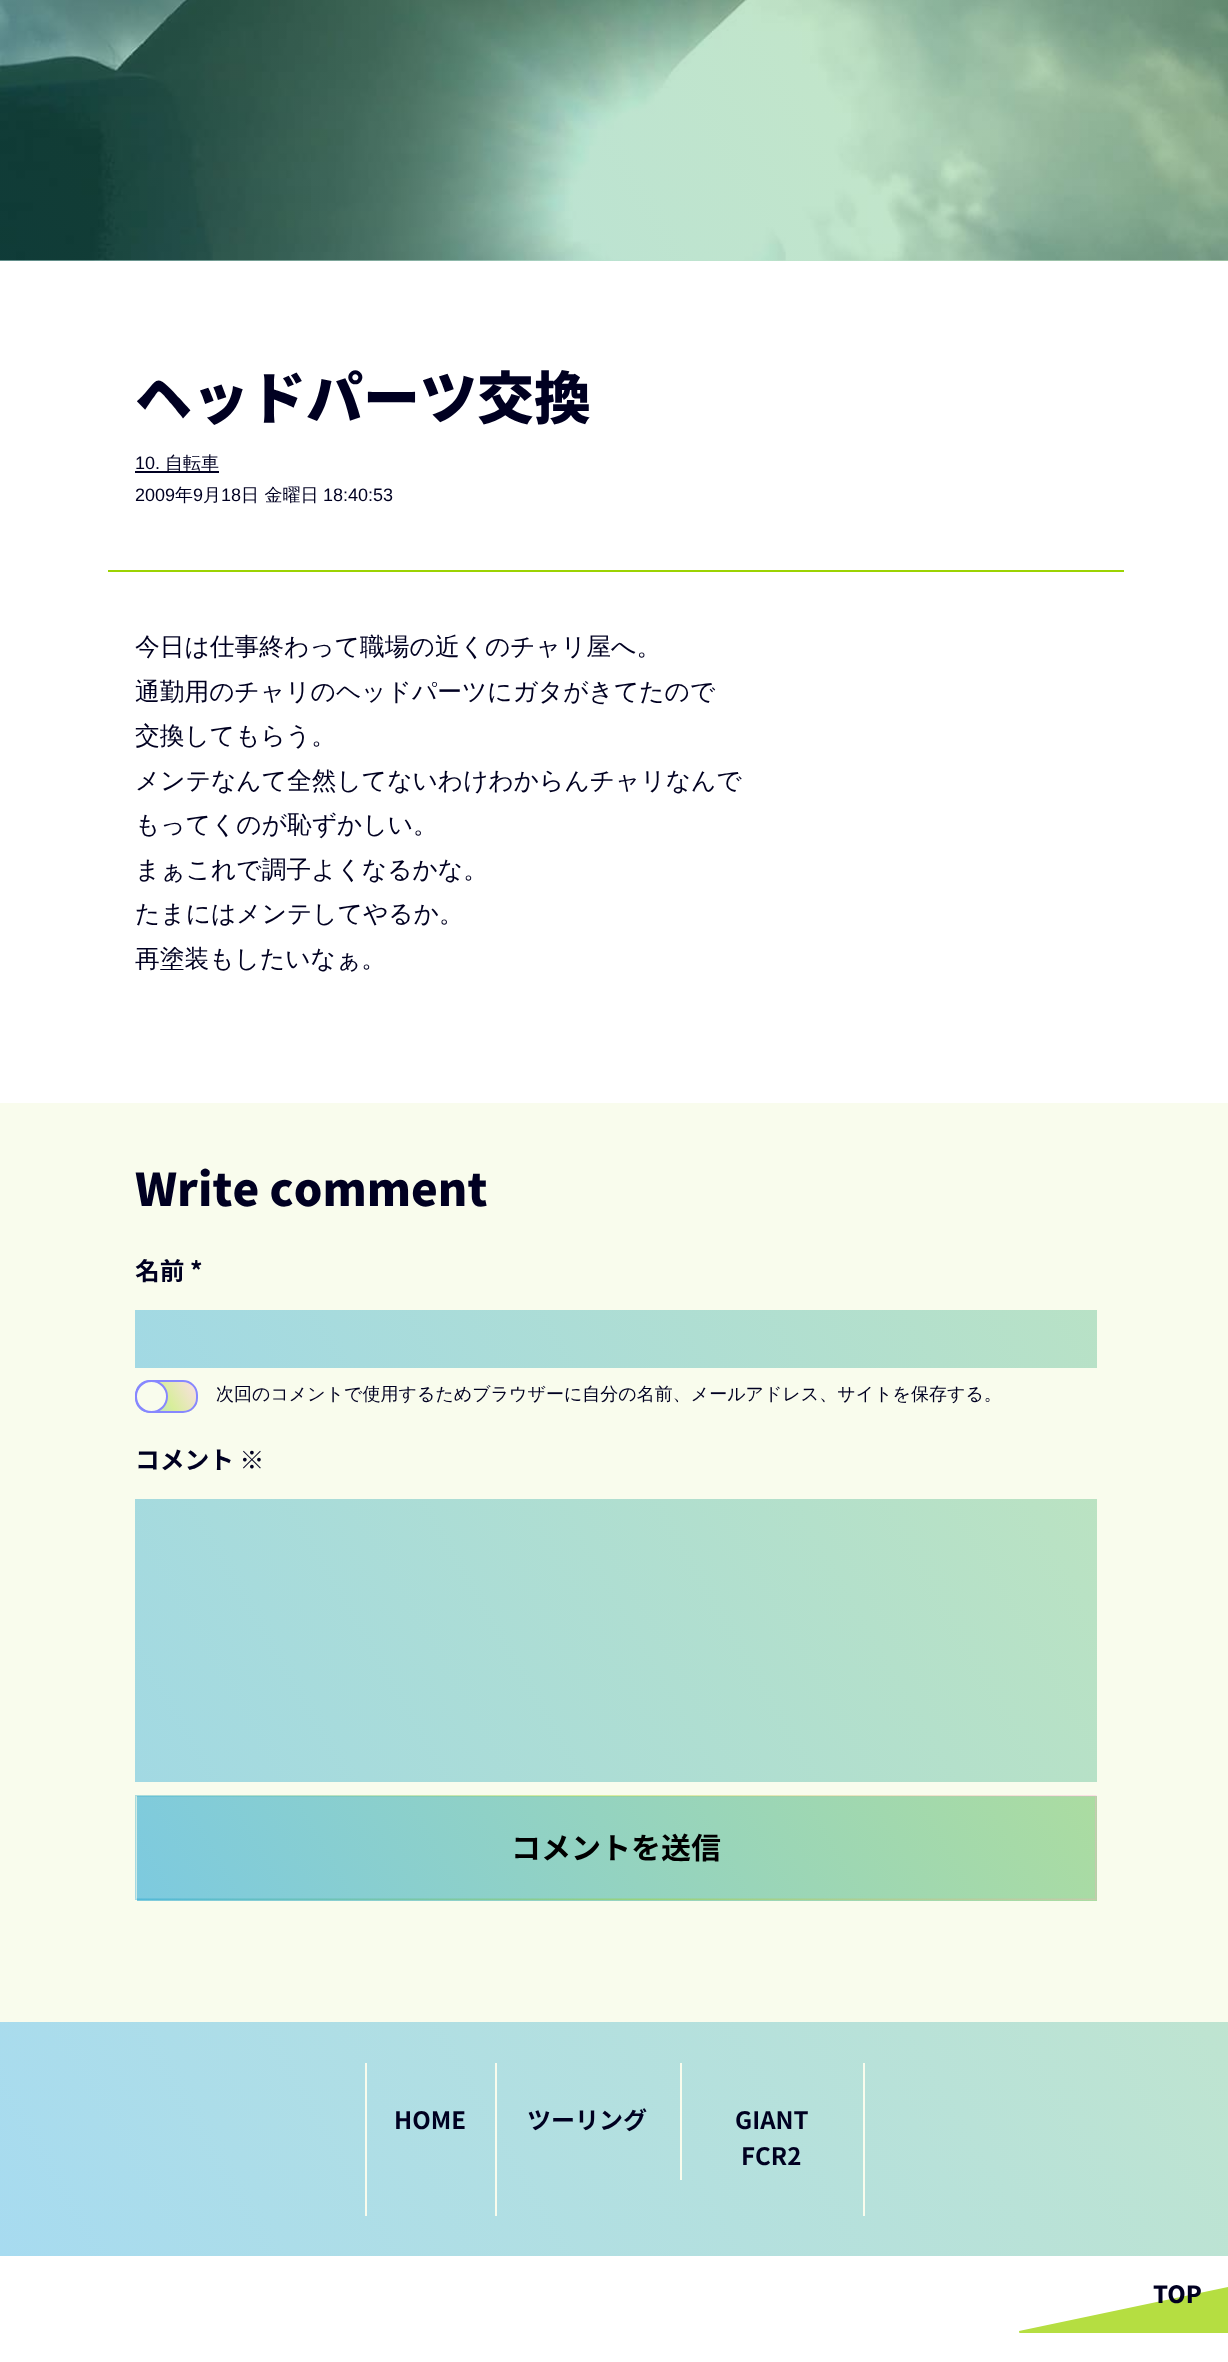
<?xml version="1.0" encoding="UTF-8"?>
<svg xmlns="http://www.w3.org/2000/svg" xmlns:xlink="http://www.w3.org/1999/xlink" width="1228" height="2362">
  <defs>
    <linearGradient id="g1" gradientUnits="userSpaceOnUse" x1="256" y1="2358" x2="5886" y2="-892"><stop offset="0" stop-color="#0197d2" stop-opacity="0.35" /><stop offset="0.5" stop-color="#9cd302" stop-opacity="0.35" /><stop offset="1" stop-color="#ffaad2" stop-opacity="0.35" /></linearGradient>
    <linearGradient id="g2" gradientUnits="userSpaceOnUse" x1="723" y1="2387" x2="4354" y2="291"><stop offset="0" stop-color="#a2d9e4" /><stop offset="0.5" stop-color="#d8ee9b" /><stop offset="1" stop-color="#fbdfe4" /></linearGradient>
    <clipPath id="clip1"><rect x="135" y="1380" width="63" height="33" rx="15" /></clipPath>
    <linearGradient id="g3" gradientUnits="userSpaceOnUse" x1="138" y1="1413" x2="195" y2="1380"><stop offset="0" stop-color="#a2d9e4" /><stop offset="0.5" stop-color="#d8ee9b" /><stop offset="1" stop-color="#fbdfe4" /></linearGradient>
    <linearGradient id="g4" gradientUnits="userSpaceOnUse" x1="675" y1="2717" x2="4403" y2="564"><stop offset="0" stop-color="#a2d9e3" /><stop offset="0.5" stop-color="#d8ee9a" /><stop offset="1" stop-color="#fbdfe3" /></linearGradient>
    <linearGradient id="g5" gradientUnits="userSpaceOnUse" x1="534" y1="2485" x2="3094" y2="1007"><stop offset="0" stop-color="#7dcae0" /><stop offset="0.5" stop-color="#cbe878" /><stop offset="1" stop-color="#fcd3e0" /></linearGradient>
    <linearGradient id="g6" gradientUnits="userSpaceOnUse" x1="534" y1="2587" x2="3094" y2="1109"><stop offset="0" stop-color="#7dcadf" /><stop offset="0.5" stop-color="#cae877" /><stop offset="1" stop-color="#fcd3df" /></linearGradient>
    <linearGradient id="g7" gradientUnits="userSpaceOnUse" x1="534" y1="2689" x2="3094" y2="1211"><stop offset="0" stop-color="#7dcae0" /><stop offset="0.5" stop-color="#cbe878" /><stop offset="1" stop-color="#fcd3e0" /></linearGradient>
    <linearGradient id="g8" gradientUnits="userSpaceOnUse" x1="717" y1="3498" x2="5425" y2="780"><stop offset="0" stop-color="#a7dbf0" /><stop offset="0.5" stop-color="#ddf0a7" /><stop offset="1" stop-color="#ffe2f0" /></linearGradient>
    <clipPath id="clip2"><rect x="1017" y="2268" width="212" height="65" /></clipPath>
  </defs>
  <rect width="100%" height="100%" fill="#ffffff" />
  <image x="0" y="0" width="1228" height="261" xlink:href="image1.png" />
  <rect width="1228" height="261" fill="url(#g1)" />
  <rect x="108" y="570" width="1016" height="2" fill="#9cd302" />
  <rect x="135" y="471" width="84" height="2" fill="#000021" />
  <rect y="1103" width="1228" height="919" fill="#f9fced" />
  <rect x="135" y="1310" width="962" height="58" fill="url(#g2)" />
  <g clip-path="url(#clip1)">
    <rect x="137" y="1382" width="60" height="30" fill="url(#g3)" />
  </g>
  <rect x="136" y="1381" width="61" height="31" rx="14" fill="none" stroke="#8787ff" stroke-width="2" />
  <circle cx="151.5" cy="1396.5" r="15.5" fill="#f9fced" stroke="#8787ff" stroke-width="2" />
  <rect x="135" y="1499" width="962" height="283" fill="url(#g4)" />
  <rect x="137" y="1796" width="960" height="1" fill="url(#g5)" />
  <rect x="137" y="1797" width="960" height="102" fill="url(#g6)" />
  <rect x="137" y="1899" width="960" height="2" fill="url(#g7)" />
  <image x="135" y="1795" width="962" height="105" xlink:href="image2.png" />
  <rect y="2022" width="1228" height="234" fill="url(#g8)" />
  <rect x="495" y="2063" width="2" height="153" fill="#f9fced" />
  <rect x="365" y="2063" width="2" height="153" fill="#f9fced" />
  <rect x="680" y="2063" width="2" height="117" fill="#f9fced" />
  <rect x="863" y="2063" width="2" height="153" fill="#f9fced" />
  <g clip-path="url(#clip2)">
    <path d="M 1019 2331 l 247 -52 l 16 73 l -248 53 z" fill="#b5de41" />
  </g>
  <text x="135" y="419" style="font-family: Noto Sans CJK JP; font-size: 57px; font-weight: 900; fill: #000021">ヘッドパーツ交換</text>
  <text x="135" y="469" style="font-family: Liberation Sans; font-size: 18px; fill: #000021">10.</text>
  <text x="165" y="469" style="font-family: WenQuanYi Zen Hei; font-size: 18px; font-weight: 500; fill: #000021">自転車</text>
  <text x="135" y="501" style="font-family: Liberation Sans; font-size: 18px; fill: #000021">2009</text>
  <text x="175" y="501" style="font-family: WenQuanYi Zen Hei; font-size: 18px; font-weight: 500; fill: #000021">年</text>
  <text x="193" y="501" style="font-family: Liberation Sans; font-size: 18px; fill: #000021">9</text>
  <text x="203" y="501" style="font-family: WenQuanYi Zen Hei; font-size: 18px; font-weight: 500; fill: #000021">月</text>
  <text x="221" y="501" style="font-family: Liberation Sans; font-size: 18px; fill: #000021">18</text>
  <text x="241" y="501" style="font-family: WenQuanYi Zen Hei; font-size: 18px; font-weight: 500; fill: #000021">日 金曜日</text>
  <text x="323" y="501" style="font-family: Liberation Sans; font-size: 18px; fill: #000021">18:40:53</text>
  <text x="135" y="655" style="font-family: WenQuanYi Zen Hei; font-size: 24.75px; font-weight: 500; fill: #000021">今日は仕事終わって職場の近くのチャリ屋へ。</text>
  <text x="135" y="700" style="font-family: WenQuanYi Zen Hei; font-size: 24.75px; font-weight: 500; fill: #000021">通勤用のチャリのヘッドパーツにガタがきてたので</text>
  <text x="135" y="744" style="font-family: WenQuanYi Zen Hei; font-size: 24.75px; font-weight: 500; fill: #000021">交換してもらう。</text>
  <text x="135" y="789" style="font-family: WenQuanYi Zen Hei; font-size: 24.75px; font-weight: 500; fill: #000021">メンテなんて全然してないわけわからんチャリなんで</text>
  <text x="135" y="833" style="font-family: WenQuanYi Zen Hei; font-size: 24.75px; font-weight: 500; fill: #000021">もってくのが恥ずかしい。</text>
  <text x="135" y="878" style="font-family: WenQuanYi Zen Hei; font-size: 24.75px; font-weight: 500; fill: #000021">まぁこれで調子よくなるかな。</text>
  <text x="135" y="922" style="font-family: WenQuanYi Zen Hei; font-size: 24.75px; font-weight: 500; fill: #000021">たまにはメンテしてやるか。</text>
  <text x="135" y="967" style="font-family: WenQuanYi Zen Hei; font-size: 24.75px; font-weight: 500; fill: #000021">再塗装もしたいなぁ。</text>
  <text x="135" y="1206" style="font-family: Noto Sans CJK JP; font-size: 45px; font-weight: 900; fill: #000021">Write comment</text>
  <text x="135" y="1280" style="font-family: Noto Sans CJK JP; font-size: 24.75px; font-weight: bold; fill: #000021">名前 *</text>
  <text x="216" y="1400" style="font-family: WenQuanYi Zen Hei; font-size: 18px; font-weight: 500; fill: #000021">次回のコメントで使用するためブラウザーに自分の名前、メールアドレス、サイトを保存する。</text>
  <text x="135" y="1469" style="font-family: Noto Sans CJK JP; font-size: 24.75px; font-weight: bold; fill: #000021">コメント ※</text>
  <text x="511" y="1859" style="font-family: Noto Sans CJK JP; font-size: 30px; font-weight: bold; fill: #000000">コメントを送信</text>
  <text x="394" y="2129" style="font-family: Noto Sans CJK JP; font-size: 24px; font-weight: bold; fill: #000021">HOME</text>
  <text x="527" y="2129" style="font-family: Noto Sans CJK JP; font-size: 24px; font-weight: bold; fill: #000021">ツーリング</text>
  <text x="735" y="2129" style="font-family: Noto Sans CJK JP; font-size: 24px; font-weight: bold; fill: #000021">GIANT</text>
  <text x="741" y="2165" style="font-family: Noto Sans CJK JP; font-size: 24px; font-weight: bold; fill: #000021">FCR2</text>
  <text x="1153" y="2303" style="font-family: Source Sans Pro; font-size: 27px; font-weight: bold; fill: #000021">TOP</text>
</svg>
